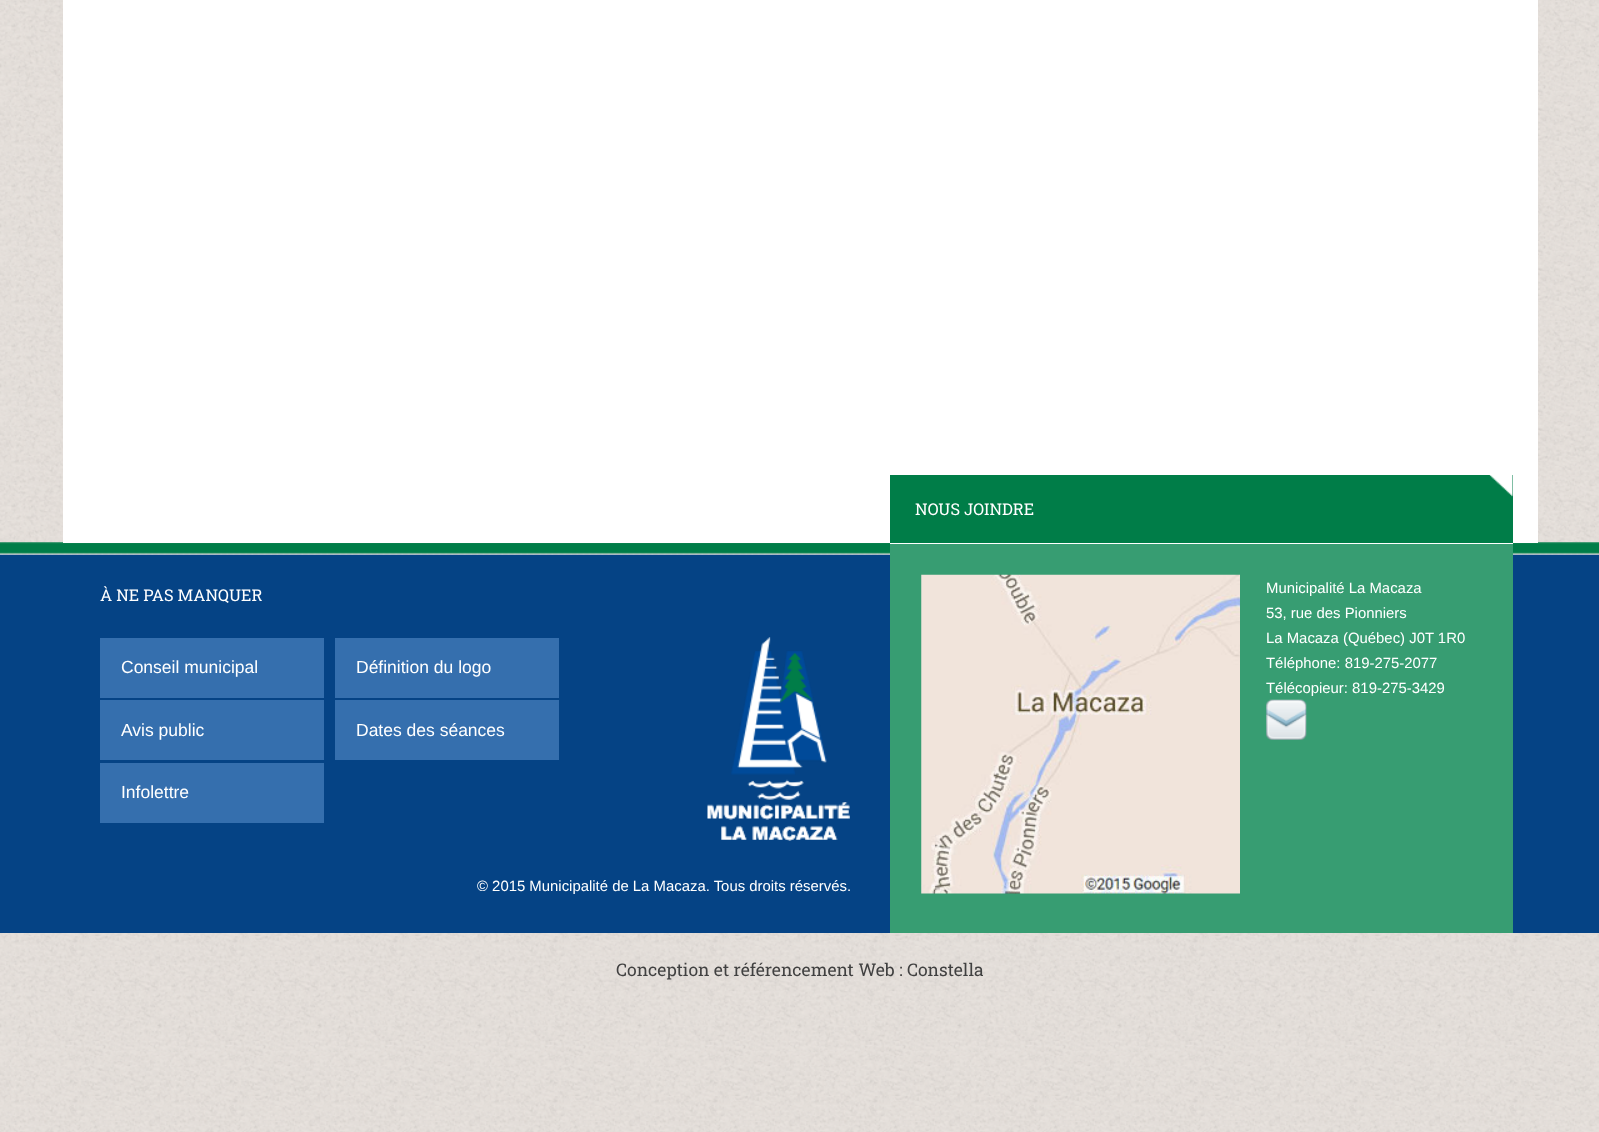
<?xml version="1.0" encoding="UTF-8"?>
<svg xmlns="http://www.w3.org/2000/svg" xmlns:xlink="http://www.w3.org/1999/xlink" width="1599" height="1132">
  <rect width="100%" height="100%" fill="#ffffff" />
  <image x="0" y="0" width="1599" height="1132" xlink:href="image1.png" />
  <rect y="554" width="1599" height="379" fill="#054385" />
  <image x="0" y="542" width="1599" height="13" xlink:href="image2.png" />
  <rect x="63" width="1475" height="543" fill="#ffffff" />
  <rect x="100" y="638" width="224" height="60" fill="#356fae" />
  <rect x="335" y="638" width="224" height="60" fill="#356fae" />
  <rect x="100" y="700" width="224" height="60" fill="#356fae" />
  <rect x="335" y="700" width="224" height="60" fill="#356fae" />
  <rect x="100" y="763" width="224" height="60" fill="#356fae" />
  <image x="707" y="637" width="143" height="204" xlink:href="image3.png" />
  <rect x="890" y="544" width="623" height="389" fill="#379d72" />
  <rect x="890" y="475" width="623" height="68" fill="#007d48" />
  <image x="1489" y="475" width="24" height="22" xlink:href="image4.png" />
  <rect x="890" y="543" width="623" height="1" fill="#ffffff" />
  <image x="921" y="574" width="319" height="320" xlink:href="image5.png" />
  <image x="1266" y="699" width="41" height="41" xlink:href="image6.png" />
  <text x="100" y="601" style="font-family: Roboto Slab; font-size: 16.25px; fill: #ffffff">À NE PAS MANQUER</text>
  <text x="121" y="673" style="font-family: Liberation Sans; font-size: 17.5px; fill: #ffffff">Conseil municipal</text>
  <text x="356" y="673" style="font-family: Liberation Sans; font-size: 17.5px; fill: #ffffff">Définition du logo</text>
  <text x="121" y="736" style="font-family: Liberation Sans; font-size: 17.5px; fill: #ffffff">Avis public</text>
  <text x="356" y="736" style="font-family: Liberation Sans; font-size: 17.5px; fill: #ffffff">Dates des séances</text>
  <text x="121" y="798" style="font-family: Liberation Sans; font-size: 17.5px; fill: #ffffff">Infolettre</text>
  <text x="477" y="891" style="font-family: Liberation Sans; font-size: 14.9px; fill: #ffffff">© 2015 Municipalité de La Macaza. Tous droits réservés.</text>
  <text x="915" y="515" style="font-family: Roboto Slab; font-size: 16.25px; fill: #ffffff">NOUS JOINDRE</text>
  <text x="1266" y="593" style="font-family: Liberation Sans; font-size: 14.9px; fill: #ffffff">Municipalité La Macaza</text>
  <text x="1266" y="618" style="font-family: Liberation Sans; font-size: 14.9px; fill: #ffffff">53, rue des Pionniers</text>
  <text x="1266" y="643" style="font-family: Liberation Sans; font-size: 14.9px; fill: #ffffff">La Macaza (Québec) J0T 1R0</text>
  <text x="1266" y="668" style="font-family: Liberation Sans; font-size: 14.9px; fill: #ffffff">Téléphone: 819-275-2077</text>
  <text x="1266" y="693" style="font-family: Liberation Sans; font-size: 14.9px; fill: #ffffff">Télécopieur: 819-275-3429</text>
  <text x="616" y="976" style="font-family: Roboto Slab; font-size: 17.5px; fill: #414141">Conception et référencement Web : Constella</text>
</svg>
